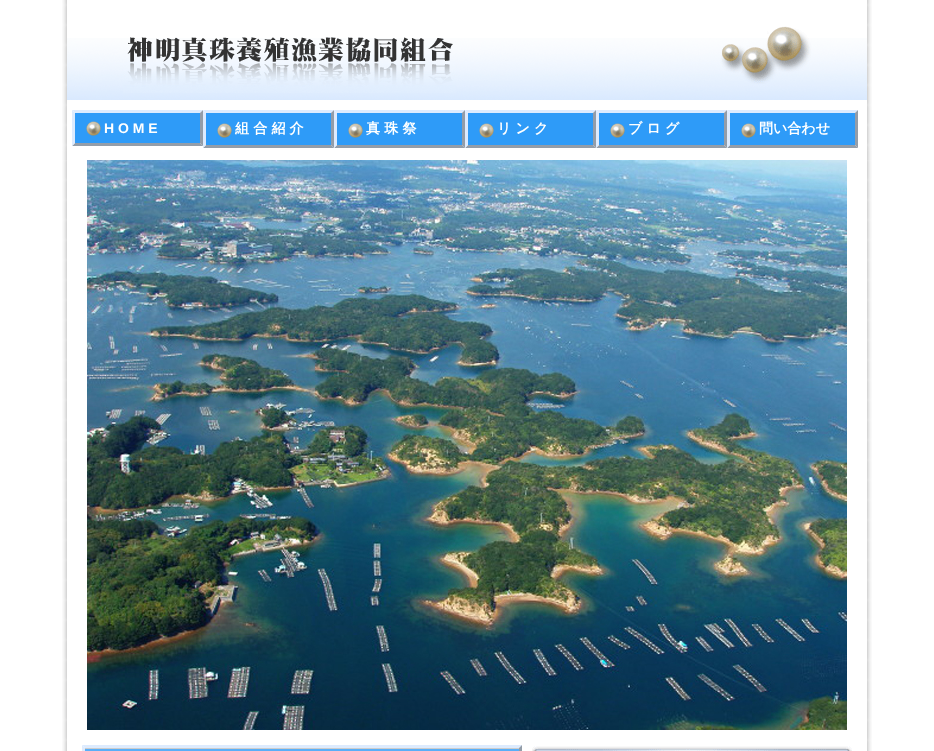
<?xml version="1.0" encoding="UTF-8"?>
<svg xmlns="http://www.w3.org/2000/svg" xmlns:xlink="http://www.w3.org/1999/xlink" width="934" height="751">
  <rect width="100%" height="100%" fill="#ffffff" />
  <image x="62" y="150" width="810" height="10" xlink:href="image1.png" />
  <image x="62" y="0" width="810" height="150" xlink:href="image2.png" />
  <image x="67" y="26" width="800" height="74" xlink:href="image3.png" />
  <path d="M 72 110 h 131 l -3 3 h -125 z" fill="#ddebfe" />
  <path d="M 203 110 v 36 l -3 -3 v -30 z" fill="#939da9" />
  <path d="M 203 146 h -131 l 3 -3 h 125 z" fill="#939da9" />
  <path d="M 72 146 v -36 l 3 3 v 30 z" fill="#ddebfe" />
  <rect x="75" y="113" width="125" height="30" fill="#2e9bf8" />
  <image x="86" y="121" width="15" height="15" xlink:href="image4.png" />
  <path d="M 203 110 h 131 l -3 3 h -125 z" fill="#ddebfe" />
  <path d="M 334 110 v 38 l -3 -3 v -32 z" fill="#939da9" />
  <path d="M 334 148 h -131 l 3 -3 h 125 z" fill="#939da9" />
  <path d="M 203 148 v -38 l 3 3 v 32 z" fill="#ddebfe" />
  <rect x="206" y="113" width="125" height="32" fill="#2e9bf8" />
  <image x="217" y="123" width="15" height="15" xlink:href="image4.png" />
  <path d="M 334 110 h 131 l -3 3 h -125 z" fill="#ddebfe" />
  <path d="M 465 110 v 38 l -3 -3 v -32 z" fill="#939da9" />
  <path d="M 465 148 h -131 l 3 -3 h 125 z" fill="#939da9" />
  <path d="M 334 148 v -38 l 3 3 v 32 z" fill="#ddebfe" />
  <rect x="337" y="113" width="125" height="32" fill="#2e9bf8" />
  <image x="348" y="123" width="15" height="15" xlink:href="image4.png" />
  <path d="M 465 110 h 131 l -3 3 h -125 z" fill="#ddebfe" />
  <path d="M 596 110 v 38 l -3 -3 v -32 z" fill="#939da9" />
  <path d="M 596 148 h -131 l 3 -3 h 125 z" fill="#939da9" />
  <path d="M 465 148 v -38 l 3 3 v 32 z" fill="#ddebfe" />
  <rect x="468" y="113" width="125" height="32" fill="#2e9bf8" />
  <image x="479" y="123" width="15" height="15" xlink:href="image4.png" />
  <path d="M 596 110 h 131 l -3 3 h -125 z" fill="#ddebfe" />
  <path d="M 727 110 v 38 l -3 -3 v -32 z" fill="#939da9" />
  <path d="M 727 148 h -131 l 3 -3 h 125 z" fill="#939da9" />
  <path d="M 596 148 v -38 l 3 3 v 32 z" fill="#ddebfe" />
  <rect x="599" y="113" width="125" height="32" fill="#2e9bf8" />
  <image x="610" y="123" width="15" height="15" xlink:href="image4.png" />
  <path d="M 727 110 h 131 l -3 3 h -125 z" fill="#ddebfe" />
  <path d="M 858 110 v 38 l -3 -3 v -32 z" fill="#939da9" />
  <path d="M 858 148 h -131 l 3 -3 h 125 z" fill="#939da9" />
  <path d="M 727 148 v -38 l 3 3 v 32 z" fill="#ddebfe" />
  <rect x="730" y="113" width="125" height="32" fill="#2e9bf8" />
  <image x="741" y="123" width="15" height="15" xlink:href="image4.png" />
  <image x="62" y="160" width="810" height="591" xlink:href="image5.png" />
  <image x="87" y="160" width="760" height="570" xlink:href="image6.png" />
  <path d="M 82 745 h 440 l -3 3 h -434 z" fill="#ddebfe" />
  <path d="M 522 745 v 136 l -3 -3 v -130 z" fill="#939da9" />
  <path d="M 82 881 v -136 l 3 3 v 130 z" fill="#ddebfe" />
  <rect x="85" y="749" width="434" height="2" fill="#59aff8" />
  <rect x="85" y="748" width="434" height="1" fill="#cccccc" />
  <image x="532" y="746" width="320" height="5" xlink:href="image7.png" />
  <text x="104" y="133" style="font-family: Liberation Sans; font-size: 14px; font-weight: bold; fill: #ffffff">H O M E</text>
  <text x="235" y="133" style="font-family: WenQuanYi Zen Hei; font-size: 14px; font-weight: bold; fill: #ffffff">組 合 紹 介</text>
  <text x="366" y="133" style="font-family: WenQuanYi Zen Hei; font-size: 14px; font-weight: bold; fill: #ffffff">真 珠 祭</text>
  <text x="497" y="133" style="font-family: WenQuanYi Zen Hei; font-size: 14px; font-weight: bold; fill: #ffffff">リ ン ク</text>
  <text x="628" y="133" style="font-family: WenQuanYi Zen Hei; font-size: 14px; font-weight: bold; fill: #ffffff">ブ ロ グ</text>
  <text x="759" y="133" style="font-family: WenQuanYi Zen Hei; font-size: 14px; font-weight: bold; fill: #ffffff">問い合わせ</text>
</svg>
